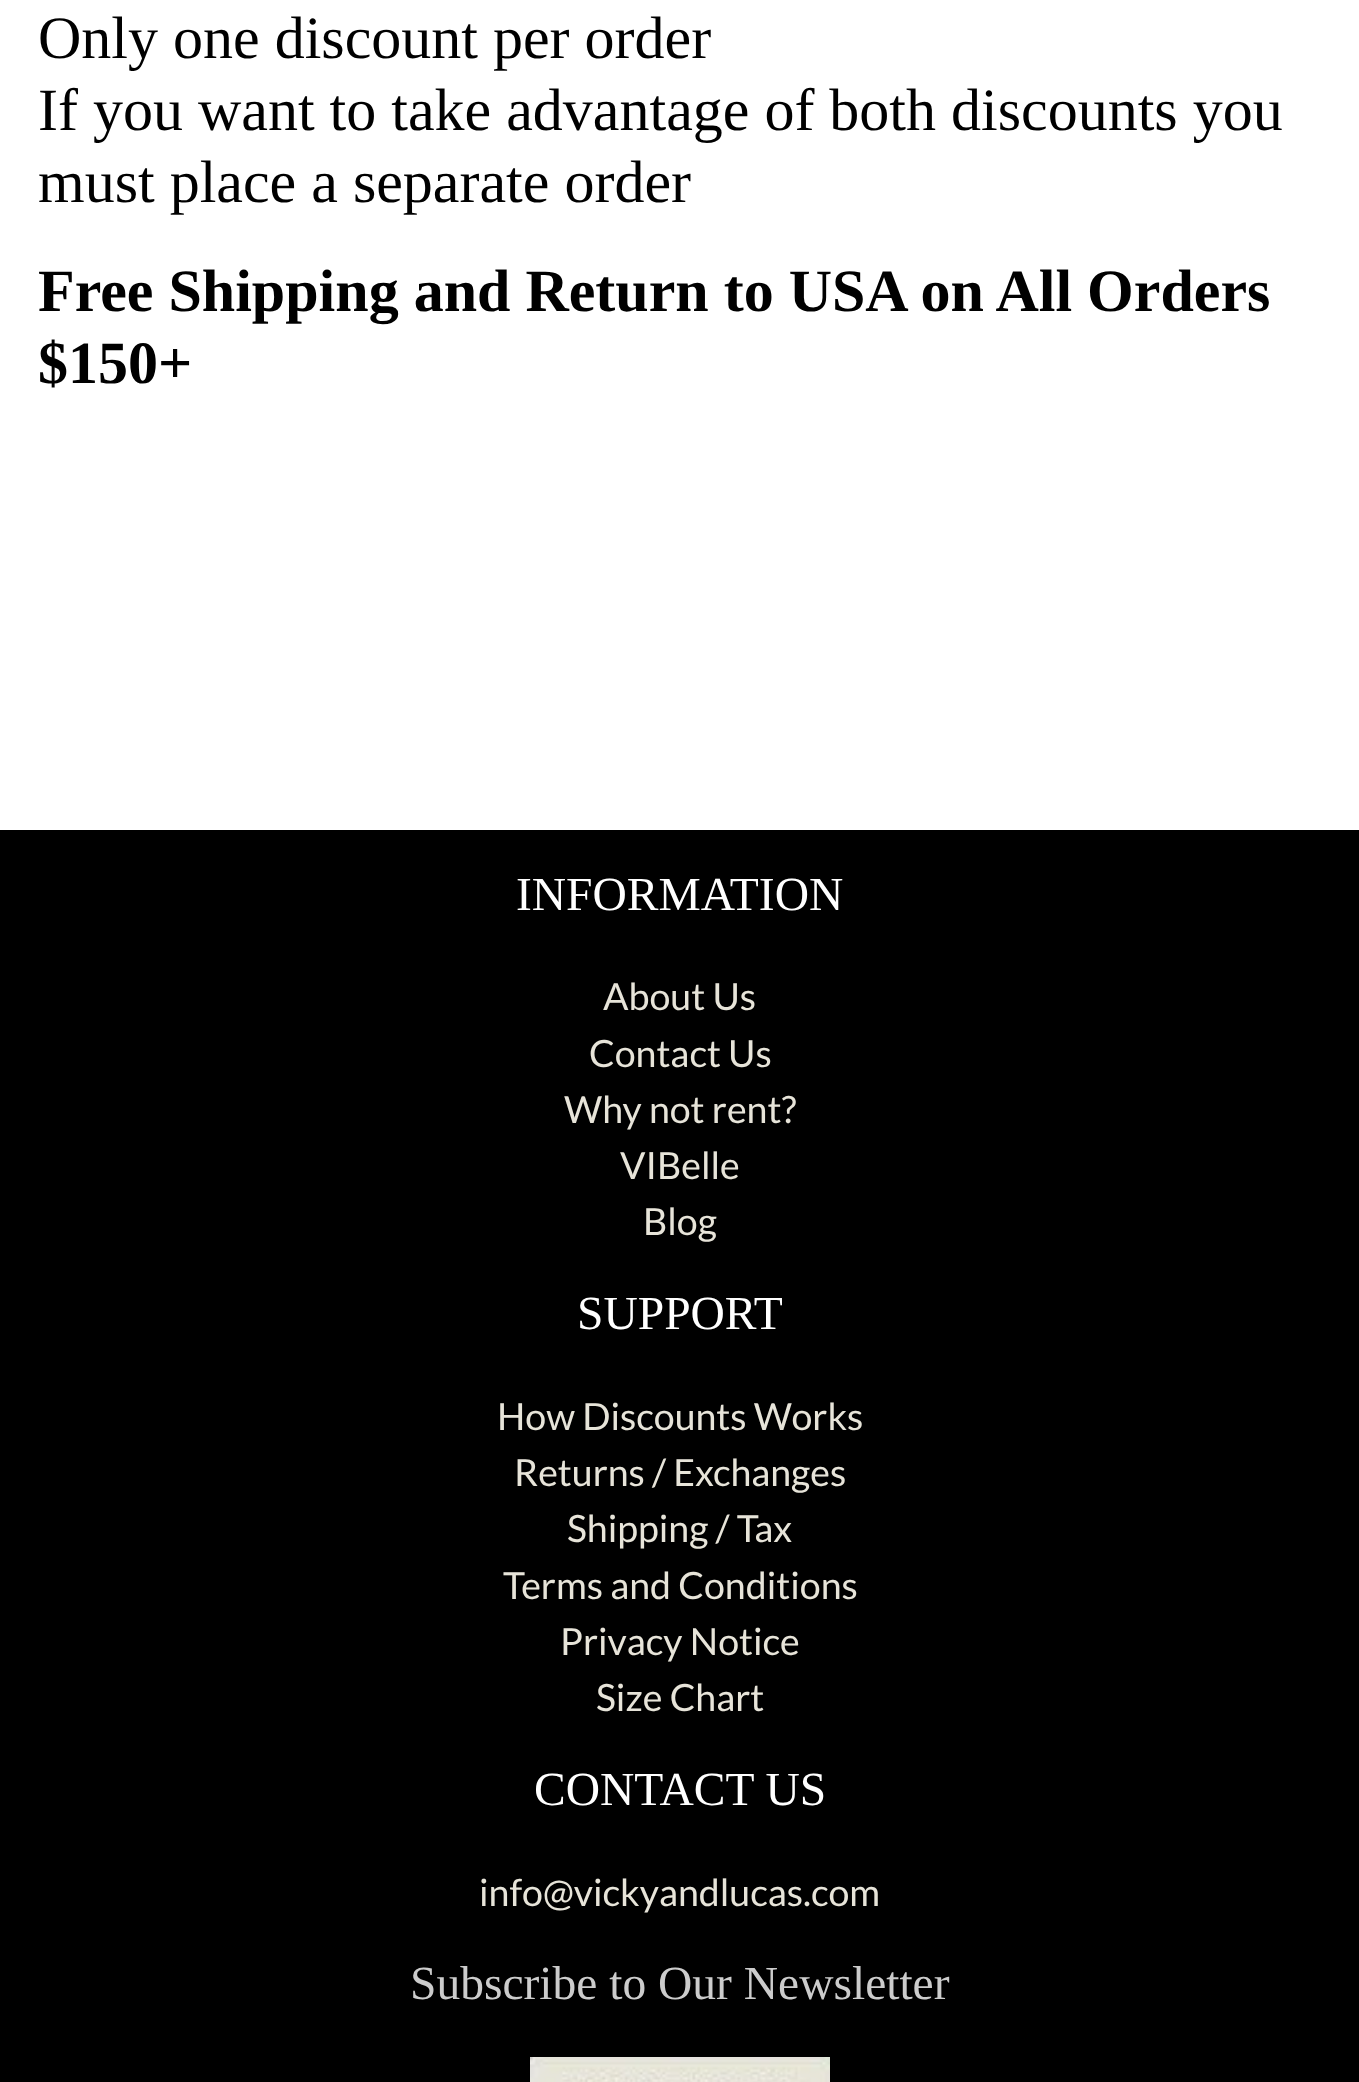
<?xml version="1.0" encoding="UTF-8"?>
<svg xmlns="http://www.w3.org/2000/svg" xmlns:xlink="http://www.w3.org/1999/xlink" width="1359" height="2082">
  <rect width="100%" height="100%" fill="#ffffff" />
  <rect y="830" width="1359" height="1252" fill="#000000" />
  <image x="530" y="2057" width="300" height="25" xlink:href="image1.png" />
  <text x="38" y="58" style="font-family: Liberation Serif; font-size: 60px; fill: #000000">Only one discount per order</text>
  <text x="38" y="130" style="font-family: Liberation Serif; font-size: 60px; fill: #000000">If you want to take advantage of both discounts you</text>
  <text x="38" y="202" style="font-family: Liberation Serif; font-size: 60px; fill: #000000">must place a separate order</text>
  <text x="38" y="311" style="font-family: Liberation Serif; font-size: 60px; font-weight: bold; fill: #000000">Free Shipping and Return to USA on All Orders</text>
  <text x="38" y="383" style="font-family: Liberation Serif; font-size: 60px; font-weight: bold; fill: #000000">$150+</text>
  <text x="516" y="910" style="font-family: Liberation Serif; font-size: 47.5px; fill: #ffffff">INFORMATION</text>
  <text x="603" y="1010" style="font-family: Lato; font-size: 37.5px; fill: #e7e4d9">About Us</text>
  <text x="589" y="1067" style="font-family: Lato; font-size: 37.5px; fill: #e7e4d9">Contact Us</text>
  <text x="564" y="1123" style="font-family: Lato; font-size: 37.5px; fill: #e7e4d9">Why not rent?</text>
  <text x="620" y="1179" style="font-family: Lato; font-size: 37.5px; fill: #e7e4d9">VIBelle</text>
  <text x="643" y="1235" style="font-family: Lato; font-size: 37.5px; fill: #e7e4d9">Blog</text>
  <text x="577" y="1329" style="font-family: Liberation Serif; font-size: 47.5px; fill: #ffffff">SUPPORT</text>
  <text x="497" y="1430" style="font-family: Lato; font-size: 37.5px; fill: #e7e4d9">How Discounts Works</text>
  <text x="514" y="1486" style="font-family: Lato; font-size: 37.5px; fill: #e7e4d9">Returns / Exchanges</text>
  <text x="567" y="1542" style="font-family: Lato; font-size: 37.5px; fill: #e7e4d9">Shipping / Tax</text>
  <text x="503" y="1599" style="font-family: Lato; font-size: 37.5px; fill: #e7e4d9">Terms and Conditions</text>
  <text x="560" y="1655" style="font-family: Lato; font-size: 37.5px; fill: #e7e4d9">Privacy Notice</text>
  <text x="596" y="1711" style="font-family: Lato; font-size: 37.5px; fill: #e7e4d9">Size Chart</text>
  <text x="534" y="1805" style="font-family: Liberation Serif; font-size: 47.5px; fill: #ffffff">CONTACT US</text>
  <text x="479" y="1906" style="font-family: Lato; font-size: 37.5px; fill: #e7e4d9">info@vickyandlucas.com</text>
  <text x="410" y="1999" style="font-family: Liberation Serif; font-size: 47.5px; fill: #cccccc">Subscribe to Our Newsletter</text>
</svg>
